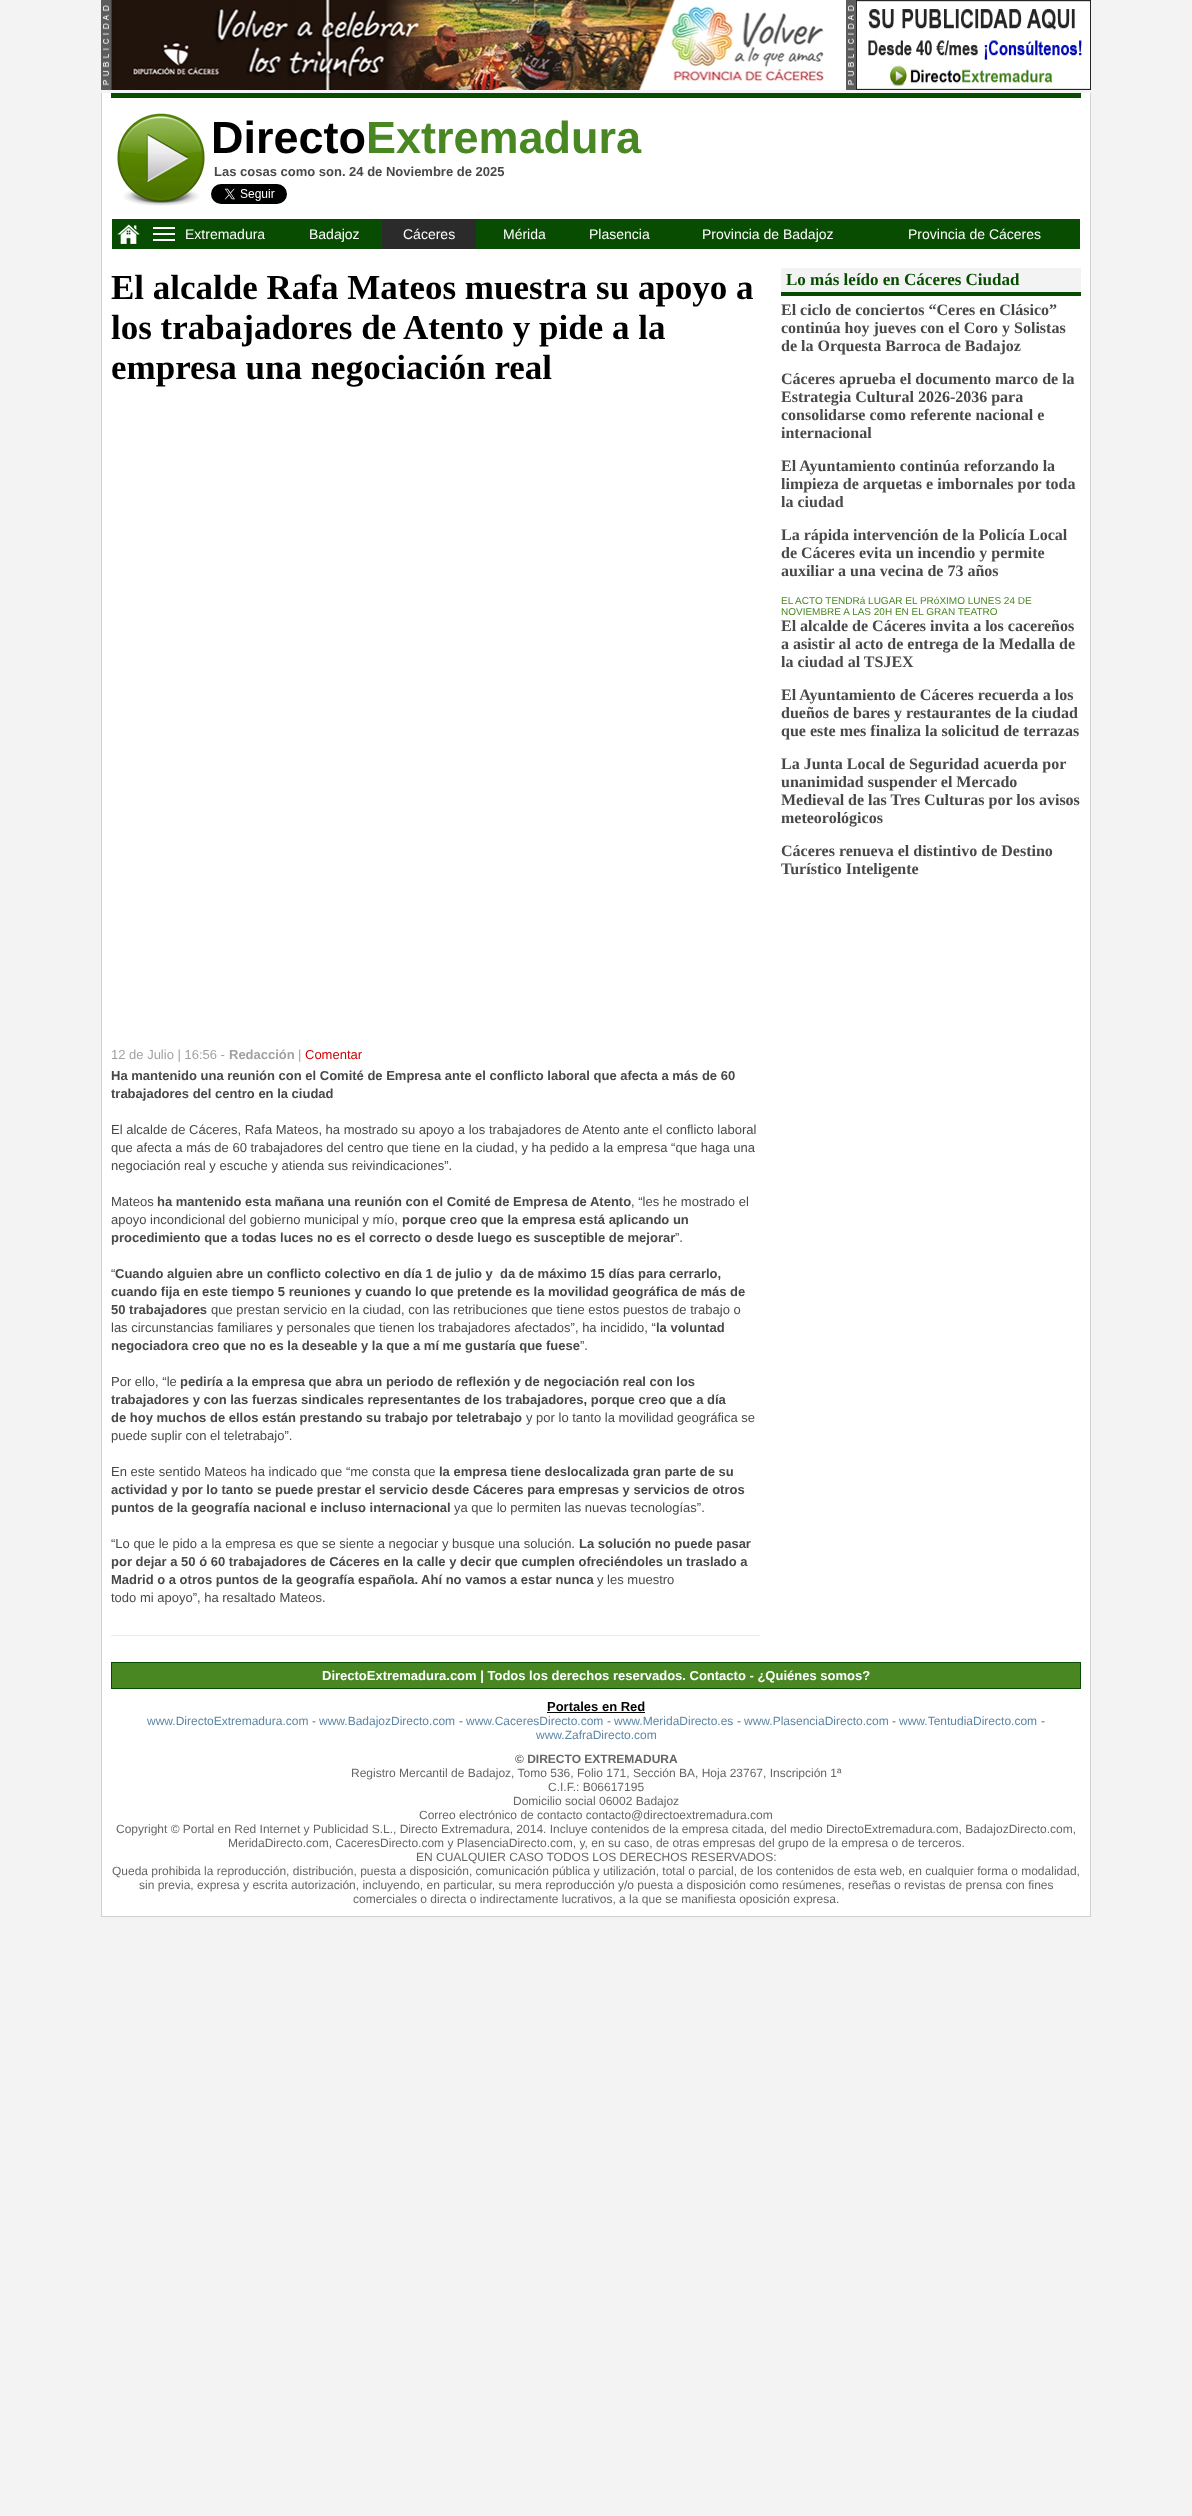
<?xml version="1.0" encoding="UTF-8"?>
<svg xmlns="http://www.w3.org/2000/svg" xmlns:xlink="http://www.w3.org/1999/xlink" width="1192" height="2516">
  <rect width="100%" height="100%" fill="#f3f3f3" />
  <rect x="824" width="22" height="90" fill="#ffffff" />
  <image x="101" y="0" width="10" height="90" xlink:href="image1.png" />
  <image x="111" y="0" width="713" height="90" xlink:href="image2.png" />
  <image x="846" y="0" width="10" height="90" xlink:href="image1.png" />
  <image x="856" y="0" width="235" height="90" xlink:href="image3.png" />
  <rect x="102" y="93" width="988" height="1823" fill="#ffffff" />
  <rect x="1090" y="93" width="1" height="1824" fill="#d0d0d0" />
  <rect x="101" y="1916" width="990" height="1" fill="#d0d0d0" />
  <rect x="101" y="93" width="1" height="1824" fill="#d0d0d0" />
  <rect x="111" y="93" width="970" height="5" fill="#074c00" />
  <image x="117" y="113" width="88" height="93" xlink:href="image4.png" />
  <image x="211" y="184" width="76" height="20" xlink:href="image5.png" />
  <rect x="112" y="219" width="968" height="30" fill="#074c00" />
  <image x="117" y="224" width="23" height="20" xlink:href="image6.png" />
  <image x="153" y="227" width="22" height="14" xlink:href="image7.png" />
  <rect x="382" y="219" width="94" height="30" fill="#2b2b2b" />
  <rect x="111" y="1635" width="649" height="1" fill="#ebebeb" />
  <rect x="781" y="268" width="300" height="24" fill="#f3f3f3" />
  <rect x="781" y="292" width="300" height="4" fill="#074c00" />
  <rect x="111.5" y="1662.5" width="969" height="26" fill="#498723" stroke="#074c00" />
  <rect x="547" y="1712" width="98" height="1" fill="#000000" />
  <text x="211" y="153" style="font-family: Liberation Sans; font-size: 45px; font-weight: bold; fill: #000000">Directo</text>
  <text x="366" y="153" style="font-family: Liberation Sans; font-size: 45px; font-weight: bold; fill: #498723">Extremadura</text>
  <text x="214" y="176" style="font-family: Liberation Sans; font-size: 13px; font-weight: bold; fill: #494949">Las cosas como son. 24 de Noviembre de 2025</text>
  <text x="185" y="239" style="font-family: Liberation Sans; font-size: 14px; fill: #ffffff">Extremadura</text>
  <text x="309" y="239" style="font-family: Liberation Sans; font-size: 14px; fill: #ffffff">Badajoz</text>
  <text x="403" y="239" style="font-family: Liberation Sans; font-size: 14px; fill: #ffffff">Cáceres</text>
  <text x="503" y="239" style="font-family: Liberation Sans; font-size: 14px; fill: #ffffff">Mérida</text>
  <text x="589" y="239" style="font-family: Liberation Sans; font-size: 14px; fill: #ffffff">Plasencia</text>
  <text x="702" y="239" style="font-family: Liberation Sans; font-size: 14px; fill: #ffffff">Provincia de Badajoz</text>
  <text x="908" y="239" style="font-family: Liberation Sans; font-size: 14px; fill: #ffffff">Provincia de Cáceres</text>
  <text x="111" y="299" style="font-family: Liberation Serif; font-size: 35px; font-weight: bold; fill: #000000">El alcalde Rafa Mateos muestra su apoyo a</text>
  <text x="111" y="339" style="font-family: Liberation Serif; font-size: 35px; font-weight: bold; fill: #000000">los trabajadores de Atento y pide a la</text>
  <text x="111" y="379" style="font-family: Liberation Serif; font-size: 35px; font-weight: bold; fill: #000000">empresa una negociación real</text>
  <text x="111" y="1059" style="font-family: Liberation Sans; font-size: 13px; fill: #a1a1a1">12 de Julio | 16:56 -</text>
  <text x="229" y="1059" style="font-family: Liberation Sans; font-size: 13px; font-weight: bold; fill: #a1a1a1">Redacción</text>
  <text x="298" y="1059" style="font-family: Liberation Sans; font-size: 13px; fill: #a1a1a1">|</text>
  <text x="305" y="1059" style="font-family: Liberation Sans; font-size: 13px; fill: #cc0000">Comentar</text>
  <text x="111" y="1080" style="font-family: Liberation Sans; font-size: 13px; font-weight: bold; fill: #494949">Ha mantenido una reunión con el Comité de Empresa ante el conflicto laboral que afecta a más de 60</text>
  <text x="111" y="1098" style="font-family: Liberation Sans; font-size: 13px; font-weight: bold; fill: #494949">trabajadores del centro en la ciudad</text>
  <text x="111" y="1134" style="font-family: Liberation Sans; font-size: 13px; fill: #494949">El alcalde de Cáceres, Rafa Mateos, ha mostrado su apoyo a los trabajadores de Atento ante el conflicto laboral</text>
  <text x="111" y="1152" style="font-family: Liberation Sans; font-size: 13px; fill: #494949">que afecta a más de 60 trabajadores del centro que tiene en la ciudad, y ha pedido a la empresa “que haga una</text>
  <text x="111" y="1170" style="font-family: Liberation Sans; font-size: 13px; fill: #494949">negociación real y escuche y atienda sus reivindicaciones”.</text>
  <text x="111" y="1206" style="font-family: Liberation Sans; font-size: 13px; fill: #494949">Mateos</text>
  <text x="157" y="1206" style="font-family: Liberation Sans; font-size: 13px; font-weight: bold; fill: #494949">ha mantenido esta mañana una reunión con el Comité de Empresa de Atento</text>
  <text x="631" y="1206" style="font-family: Liberation Sans; font-size: 13px; fill: #494949">, “les he mostrado el</text>
  <text x="111" y="1224" style="font-family: Liberation Sans; font-size: 13px; fill: #494949">apoyo incondicional del gobierno municipal y mío,</text>
  <text x="402" y="1224" style="font-family: Liberation Sans; font-size: 13px; font-weight: bold; fill: #494949">porque creo que la empresa está aplicando un</text>
  <text x="111" y="1242" style="font-family: Liberation Sans; font-size: 13px; font-weight: bold; fill: #494949">procedimiento que a todas luces no es el correcto o desde luego es susceptible de mejorar</text>
  <text x="675" y="1242" style="font-family: Liberation Sans; font-size: 13px; fill: #494949">”.</text>
  <text x="111" y="1278" style="font-family: Liberation Sans; font-size: 13px; fill: #494949">“</text>
  <text x="115" y="1278" style="font-family: Liberation Sans; font-size: 13px; font-weight: bold; fill: #494949" xml:space="preserve">Cuando alguien abre un conflicto colectivo en día 1 de julio y  da de máximo 15 días para cerrarlo,</text>
  <text x="111" y="1296" style="font-family: Liberation Sans; font-size: 13px; font-weight: bold; fill: #494949">cuando fija en este tiempo 5 reuniones y cuando lo que pretende es la movilidad geográfica de más de</text>
  <text x="111" y="1314" style="font-family: Liberation Sans; font-size: 13px; font-weight: bold; fill: #494949">50 trabajadores</text>
  <text x="211" y="1314" style="font-family: Liberation Sans; font-size: 13px; fill: #494949">que prestan servicio en la ciudad, con las retribuciones que tiene estos puestos de trabajo o</text>
  <text x="111" y="1332" style="font-family: Liberation Sans; font-size: 13px; fill: #494949">las circunstancias familiares y personales que tienen los trabajadores afectados”, ha incidido, “</text>
  <text x="656" y="1332" style="font-family: Liberation Sans; font-size: 13px; font-weight: bold; fill: #494949">la voluntad</text>
  <text x="111" y="1350" style="font-family: Liberation Sans; font-size: 13px; font-weight: bold; fill: #494949">negociadora creo que no es la deseable y la que a mí me gustaría que fuese</text>
  <text x="580" y="1350" style="font-family: Liberation Sans; font-size: 13px; fill: #494949">”.</text>
  <text x="111" y="1386" style="font-family: Liberation Sans; font-size: 13px; fill: #494949">Por ello, “le</text>
  <text x="180" y="1386" style="font-family: Liberation Sans; font-size: 13px; font-weight: bold; fill: #494949">pediría a la empresa que abra un periodo de reflexión y de negociación real con los</text>
  <text x="111" y="1404" style="font-family: Liberation Sans; font-size: 13px; font-weight: bold; fill: #494949">trabajadores y con las fuerzas sindicales representantes de los trabajadores, porque creo que a día</text>
  <text x="111" y="1422" style="font-family: Liberation Sans; font-size: 13px; font-weight: bold; fill: #494949">de hoy muchos de ellos están prestando su trabajo por teletrabajo</text>
  <text x="526" y="1422" style="font-family: Liberation Sans; font-size: 13px; fill: #494949">y por lo tanto la movilidad geográfica se</text>
  <text x="111" y="1440" style="font-family: Liberation Sans; font-size: 13px; fill: #494949">puede suplir con el teletrabajo”.</text>
  <text x="111" y="1476" style="font-family: Liberation Sans; font-size: 13px; fill: #494949">En este sentido Mateos ha indicado que “me consta que</text>
  <text x="439" y="1476" style="font-family: Liberation Sans; font-size: 13px; font-weight: bold; fill: #494949">la empresa tiene deslocalizada gran parte de su</text>
  <text x="111" y="1494" style="font-family: Liberation Sans; font-size: 13px; font-weight: bold; fill: #494949">actividad y por lo tanto se puede prestar el servicio desde Cáceres para empresas y servicios de otros</text>
  <text x="111" y="1512" style="font-family: Liberation Sans; font-size: 13px; font-weight: bold; fill: #494949">puntos de la geografía nacional e incluso internacional</text>
  <text x="454" y="1512" style="font-family: Liberation Sans; font-size: 13px; fill: #494949">ya que lo permiten las nuevas tecnologías”.</text>
  <text x="111" y="1548" style="font-family: Liberation Sans; font-size: 13px; fill: #494949">“Lo que le pido a la empresa es que se siente a negociar y busque una solución.</text>
  <text x="579" y="1548" style="font-family: Liberation Sans; font-size: 13px; font-weight: bold; fill: #494949">La solución no puede pasar</text>
  <text x="111" y="1566" style="font-family: Liberation Sans; font-size: 13px; font-weight: bold; fill: #494949">por dejar a 50 ó 60 trabajadores de Cáceres en la calle y decir que cumplen ofreciéndoles un traslado a</text>
  <text x="111" y="1584" style="font-family: Liberation Sans; font-size: 13px; font-weight: bold; fill: #494949">Madrid o a otros puntos de la geografía española. Ahí no vamos a estar nunca</text>
  <text x="597" y="1584" style="font-family: Liberation Sans; font-size: 13px; fill: #494949">y les muestro</text>
  <text x="111" y="1602" style="font-family: Liberation Sans; font-size: 13px; fill: #494949">todo mi apoyo”, ha resaltado Mateos.</text>
  <text x="786" y="285" style="font-family: Liberation Serif; font-size: 17px; font-weight: bold; fill: #074c00">Lo más leído en Cáceres Ciudad</text>
  <text x="781" y="315" style="font-family: Liberation Serif; font-size: 16px; font-weight: bold; fill: #494949">El ciclo de conciertos “Ceres en Clásico”</text>
  <text x="781" y="333" style="font-family: Liberation Serif; font-size: 16px; font-weight: bold; fill: #494949">continúa hoy jueves con el Coro y Solistas</text>
  <text x="781" y="351" style="font-family: Liberation Serif; font-size: 16px; font-weight: bold; fill: #494949">de la Orquesta Barroca de Badajoz</text>
  <text x="781" y="384" style="font-family: Liberation Serif; font-size: 16px; font-weight: bold; fill: #494949">Cáceres aprueba el documento marco de la</text>
  <text x="781" y="402" style="font-family: Liberation Serif; font-size: 16px; font-weight: bold; fill: #494949">Estrategia Cultural 2026-2036 para</text>
  <text x="781" y="420" style="font-family: Liberation Serif; font-size: 16px; font-weight: bold; fill: #494949">consolidarse como referente nacional e</text>
  <text x="781" y="438" style="font-family: Liberation Serif; font-size: 16px; font-weight: bold; fill: #494949">internacional</text>
  <text x="781" y="471" style="font-family: Liberation Serif; font-size: 16px; font-weight: bold; fill: #494949">El Ayuntamiento continúa reforzando la</text>
  <text x="781" y="489" style="font-family: Liberation Serif; font-size: 16px; font-weight: bold; fill: #494949">limpieza de arquetas e imbornales por toda</text>
  <text x="781" y="507" style="font-family: Liberation Serif; font-size: 16px; font-weight: bold; fill: #494949">la ciudad</text>
  <text x="781" y="540" style="font-family: Liberation Serif; font-size: 16px; font-weight: bold; fill: #494949">La rápida intervención de la Policía Local</text>
  <text x="781" y="558" style="font-family: Liberation Serif; font-size: 16px; font-weight: bold; fill: #494949">de Cáceres evita un incendio y permite</text>
  <text x="781" y="576" style="font-family: Liberation Serif; font-size: 16px; font-weight: bold; fill: #494949">auxiliar a una vecina de 73 años</text>
  <text x="781" y="604" style="font-family: Liberation Sans; font-size: 10px; fill: #498723">EL ACTO TENDRá LUGAR EL PRóXIMO LUNES 24 DE</text>
  <text x="781" y="615" style="font-family: Liberation Sans; font-size: 10px; fill: #498723">NOVIEMBRE A LAS 20H EN EL GRAN TEATRO</text>
  <text x="781" y="631" style="font-family: Liberation Serif; font-size: 16px; font-weight: bold; fill: #494949">El alcalde de Cáceres invita a los cacereños</text>
  <text x="781" y="649" style="font-family: Liberation Serif; font-size: 16px; font-weight: bold; fill: #494949">a asistir al acto de entrega de la Medalla de</text>
  <text x="781" y="667" style="font-family: Liberation Serif; font-size: 16px; font-weight: bold; fill: #494949">la ciudad al TSJEX</text>
  <text x="781" y="700" style="font-family: Liberation Serif; font-size: 16px; font-weight: bold; fill: #494949">El Ayuntamiento de Cáceres recuerda a los</text>
  <text x="781" y="718" style="font-family: Liberation Serif; font-size: 16px; font-weight: bold; fill: #494949">dueños de bares y restaurantes de la ciudad</text>
  <text x="781" y="736" style="font-family: Liberation Serif; font-size: 16px; font-weight: bold; fill: #494949">que este mes finaliza la solicitud de terrazas</text>
  <text x="781" y="769" style="font-family: Liberation Serif; font-size: 16px; font-weight: bold; fill: #494949">La Junta Local de Seguridad acuerda por</text>
  <text x="781" y="787" style="font-family: Liberation Serif; font-size: 16px; font-weight: bold; fill: #494949">unanimidad suspender el Mercado</text>
  <text x="781" y="805" style="font-family: Liberation Serif; font-size: 16px; font-weight: bold; fill: #494949">Medieval de las Tres Culturas por los avisos</text>
  <text x="781" y="823" style="font-family: Liberation Serif; font-size: 16px; font-weight: bold; fill: #494949">meteorológicos</text>
  <text x="781" y="856" style="font-family: Liberation Serif; font-size: 16px; font-weight: bold; fill: #494949">Cáceres renueva el distintivo de Destino</text>
  <text x="781" y="874" style="font-family: Liberation Serif; font-size: 16px; font-weight: bold; fill: #494949">Turístico Inteligente</text>
  <text x="322" y="1680" style="font-family: Liberation Sans; font-size: 13px; font-weight: bold; fill: #ffffff">DirectoExtremadura.com | Todos los derechos reservados. Contacto - ¿Quiénes somos?</text>
  <text x="547" y="1711" style="font-family: Liberation Sans; font-size: 13px; font-weight: bold; fill: #000000">Portales en Red</text>
  <text x="147" y="1725" style="font-family: Liberation Sans; font-size: 12px; fill: #5d86a5">www.DirectoExtremadura.com</text>
  <text x="312" y="1725" style="font-family: Liberation Sans; font-size: 12px; fill: #666666">-</text>
  <text x="319" y="1725" style="font-family: Liberation Sans; font-size: 12px; fill: #5d86a5">www.BadajozDirecto.com</text>
  <text x="459" y="1725" style="font-family: Liberation Sans; font-size: 12px; fill: #666666">-</text>
  <text x="466" y="1725" style="font-family: Liberation Sans; font-size: 12px; fill: #5d86a5">www.CaceresDirecto.com</text>
  <text x="607" y="1725" style="font-family: Liberation Sans; font-size: 12px; fill: #666666">-</text>
  <text x="614" y="1725" style="font-family: Liberation Sans; font-size: 12px; fill: #5d86a5">www.MeridaDirecto.es</text>
  <text x="737" y="1725" style="font-family: Liberation Sans; font-size: 12px; fill: #666666">-</text>
  <text x="744" y="1725" style="font-family: Liberation Sans; font-size: 12px; fill: #5d86a5">www.PlasenciaDirecto.com</text>
  <text x="892" y="1725" style="font-family: Liberation Sans; font-size: 12px; fill: #666666">-</text>
  <text x="899" y="1725" style="font-family: Liberation Sans; font-size: 12px; fill: #5d86a5">www.TentudiaDirecto.com</text>
  <text x="1041" y="1725" style="font-family: Liberation Sans; font-size: 12px; fill: #666666">-</text>
  <text x="536" y="1739" style="font-family: Liberation Sans; font-size: 12px; fill: #5d86a5">www.ZafraDirecto.com</text>
  <text x="515" y="1763" style="font-family: Liberation Sans; font-size: 12px; font-weight: bold; fill: #666666">© DIRECTO EXTREMADURA</text>
  <text x="351" y="1777" style="font-family: Liberation Sans; font-size: 12px; fill: #666666">Registro Mercantil de Badajoz, Tomo 536, Folio 171, Sección BA, Hoja 23767, Inscripción 1ª</text>
  <text x="548" y="1791" style="font-family: Liberation Sans; font-size: 12px; fill: #666666">C.I.F.: B06617195</text>
  <text x="513" y="1805" style="font-family: Liberation Sans; font-size: 12px; fill: #666666">Domicilio social 06002 Badajoz</text>
  <text x="419" y="1819" style="font-family: Liberation Sans; font-size: 12px; fill: #666666">Correo electrónico de contacto contacto@directoextremadura.com</text>
  <text x="116" y="1833" style="font-family: Liberation Sans; font-size: 12px; fill: #666666">Copyright © Portal en Red Internet y Publicidad S.L., Directo Extremadura, 2014. Incluye contenidos de la empresa citada, del medio DirectoExtremadura.com, BadajozDirecto.com,</text>
  <text x="228" y="1847" style="font-family: Liberation Sans; font-size: 12px; fill: #666666">MeridaDirecto.com, CaceresDirecto.com y PlasenciaDirecto.com, y, en su caso, de otras empresas del grupo de la empresa o de terceros.</text>
  <text x="416" y="1861" style="font-family: Liberation Sans; font-size: 12px; fill: #666666">EN CUALQUIER CASO TODOS LOS DERECHOS RESERVADOS:</text>
  <text x="112" y="1875" style="font-family: Liberation Sans; font-size: 12px; fill: #666666">Queda prohibida la reproducción, distribución, puesta a disposición, comunicación pública y utilización, total o parcial, de los contenidos de esta web, en cualquier forma o modalidad,</text>
  <text x="139" y="1889" style="font-family: Liberation Sans; font-size: 12px; fill: #666666">sin previa, expresa y escrita autorización, incluyendo, en particular, su mera reproducción y/o puesta a disposición como resúmenes, reseñas o revistas de prensa con fines</text>
  <text x="353" y="1903" style="font-family: Liberation Sans; font-size: 12px; fill: #666666">comerciales o directa o indirectamente lucrativos, a la que se manifiesta oposición expresa.</text>
</svg>
